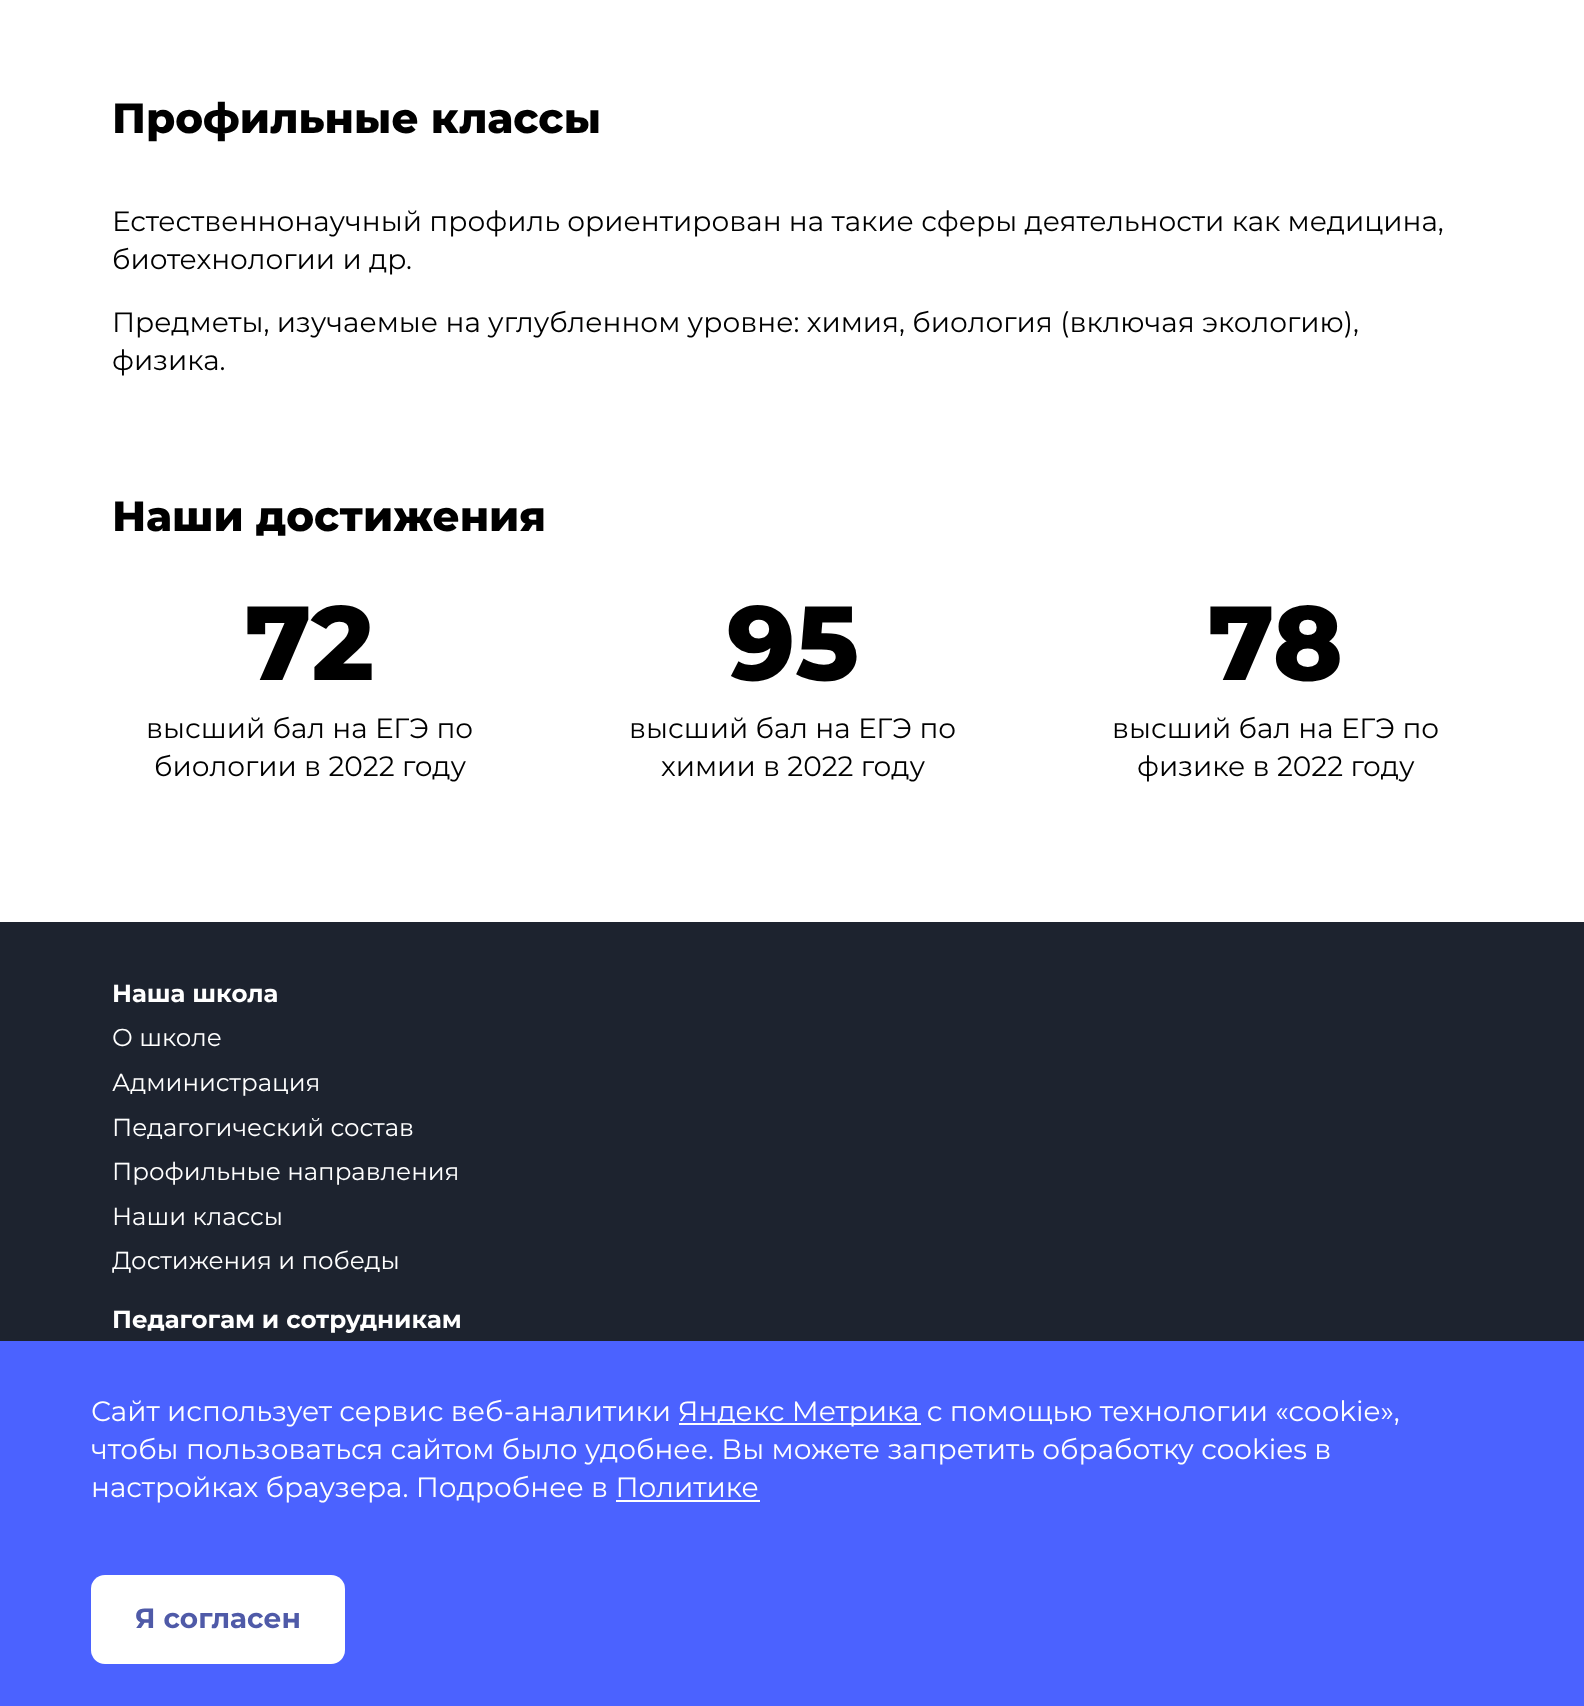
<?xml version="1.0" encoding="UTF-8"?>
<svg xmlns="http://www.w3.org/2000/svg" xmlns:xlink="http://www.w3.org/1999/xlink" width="1584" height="1706">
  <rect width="100%" height="100%" fill="#ffffff" />
  <rect y="922" width="1584" height="419" fill="#1d232f" />
  <rect y="1341" width="1584" height="365" fill="#4b62ff" />
  <rect x="679" y="1423" width="242" height="2" fill="#ffffff" />
  <rect x="616" y="1500" width="144" height="2" fill="#ffffff" />
  <rect x="91" y="1575" width="254" height="89" rx="14" fill="#ffffff" />
  <text x="112" y="133" style="font-family: Montserrat; font-size: 42px; font-weight: 800; fill: #000000">Профильные классы</text>
  <text x="112" y="231" style="font-family: Montserrat; font-size: 28px; fill: #000000">Естественнонаучный профиль ориентирован на такие сферы деятельности как медицина,</text>
  <text x="112" y="269" style="font-family: Montserrat; font-size: 28px; fill: #000000">биотехнологии и др.</text>
  <text x="112" y="332" style="font-family: Montserrat; font-size: 28px; fill: #000000">Предметы, изучаемые на углубленном уровне: химия, биология (включая экологию),</text>
  <text x="112" y="370" style="font-family: Montserrat; font-size: 28px; fill: #000000">физика.</text>
  <text x="112" y="531" style="font-family: Montserrat; font-size: 42px; font-weight: 800; fill: #000000">Наши достижения</text>
  <text x="245" y="680" style="font-family: Montserrat; font-size: 105px; font-weight: 800; fill: #000000">72</text>
  <text x="146" y="738" style="font-family: Montserrat; font-size: 28px; fill: #000000">высший бал на ЕГЭ по</text>
  <text x="154" y="776" style="font-family: Montserrat; font-size: 28px; fill: #000000">биологии в 2022 году</text>
  <text x="727" y="680" style="font-family: Montserrat; font-size: 105px; font-weight: 800; fill: #000000">95</text>
  <text x="629" y="738" style="font-family: Montserrat; font-size: 28px; fill: #000000">высший бал на ЕГЭ по</text>
  <text x="661" y="776" style="font-family: Montserrat; font-size: 28px; fill: #000000">химии в 2022 году</text>
  <text x="1208" y="680" style="font-family: Montserrat; font-size: 105px; font-weight: 800; fill: #000000">78</text>
  <text x="1112" y="738" style="font-family: Montserrat; font-size: 28px; fill: #000000">высший бал на ЕГЭ по</text>
  <text x="1137" y="776" style="font-family: Montserrat; font-size: 28px; fill: #000000">физике в 2022 году</text>
  <text x="112" y="1002" style="font-family: Montserrat; font-size: 24.5px; font-weight: bold; fill: #ffffff">Наша школа</text>
  <text x="112" y="1046" style="font-family: Montserrat; font-size: 24.5px; fill: #ffffff">О школе</text>
  <text x="112" y="1091" style="font-family: Montserrat; font-size: 24.5px; fill: #ffffff">Администрация</text>
  <text x="112" y="1136" style="font-family: Montserrat; font-size: 24.5px; fill: #ffffff">Педагогический состав</text>
  <text x="112" y="1180" style="font-family: Montserrat; font-size: 24.5px; fill: #ffffff">Профильные направления</text>
  <text x="112" y="1225" style="font-family: Montserrat; font-size: 24.5px; fill: #ffffff">Наши классы</text>
  <text x="112" y="1269" style="font-family: Montserrat; font-size: 24.5px; fill: #ffffff">Достижения и победы</text>
  <text x="112" y="1328" style="font-family: Montserrat; font-size: 24.5px; font-weight: bold; fill: #ffffff">Педагогам и сотрудникам</text>
  <text x="91" y="1421" style="font-family: Montserrat; font-size: 28px; fill: #ffffff">Сайт использует сервис веб-аналитики</text>
  <text x="678" y="1421" style="font-family: Montserrat; font-size: 28px; fill: #ffffff">Яндекс Метрика с помощью технологии «cookie»,</text>
  <text x="91" y="1459" style="font-family: Montserrat; font-size: 28px; fill: #ffffff">чтобы пользоваться сайтом было удобнее. Вы можете запретить обработку cookies в</text>
  <text x="91" y="1497" style="font-family: Montserrat; font-size: 28px; fill: #ffffff">настройках браузера. Подробнее в Политике</text>
  <text x="135" y="1628" style="font-family: Montserrat; font-size: 28px; font-weight: bold; fill: #4f5aa8">Я согласен</text>
</svg>
